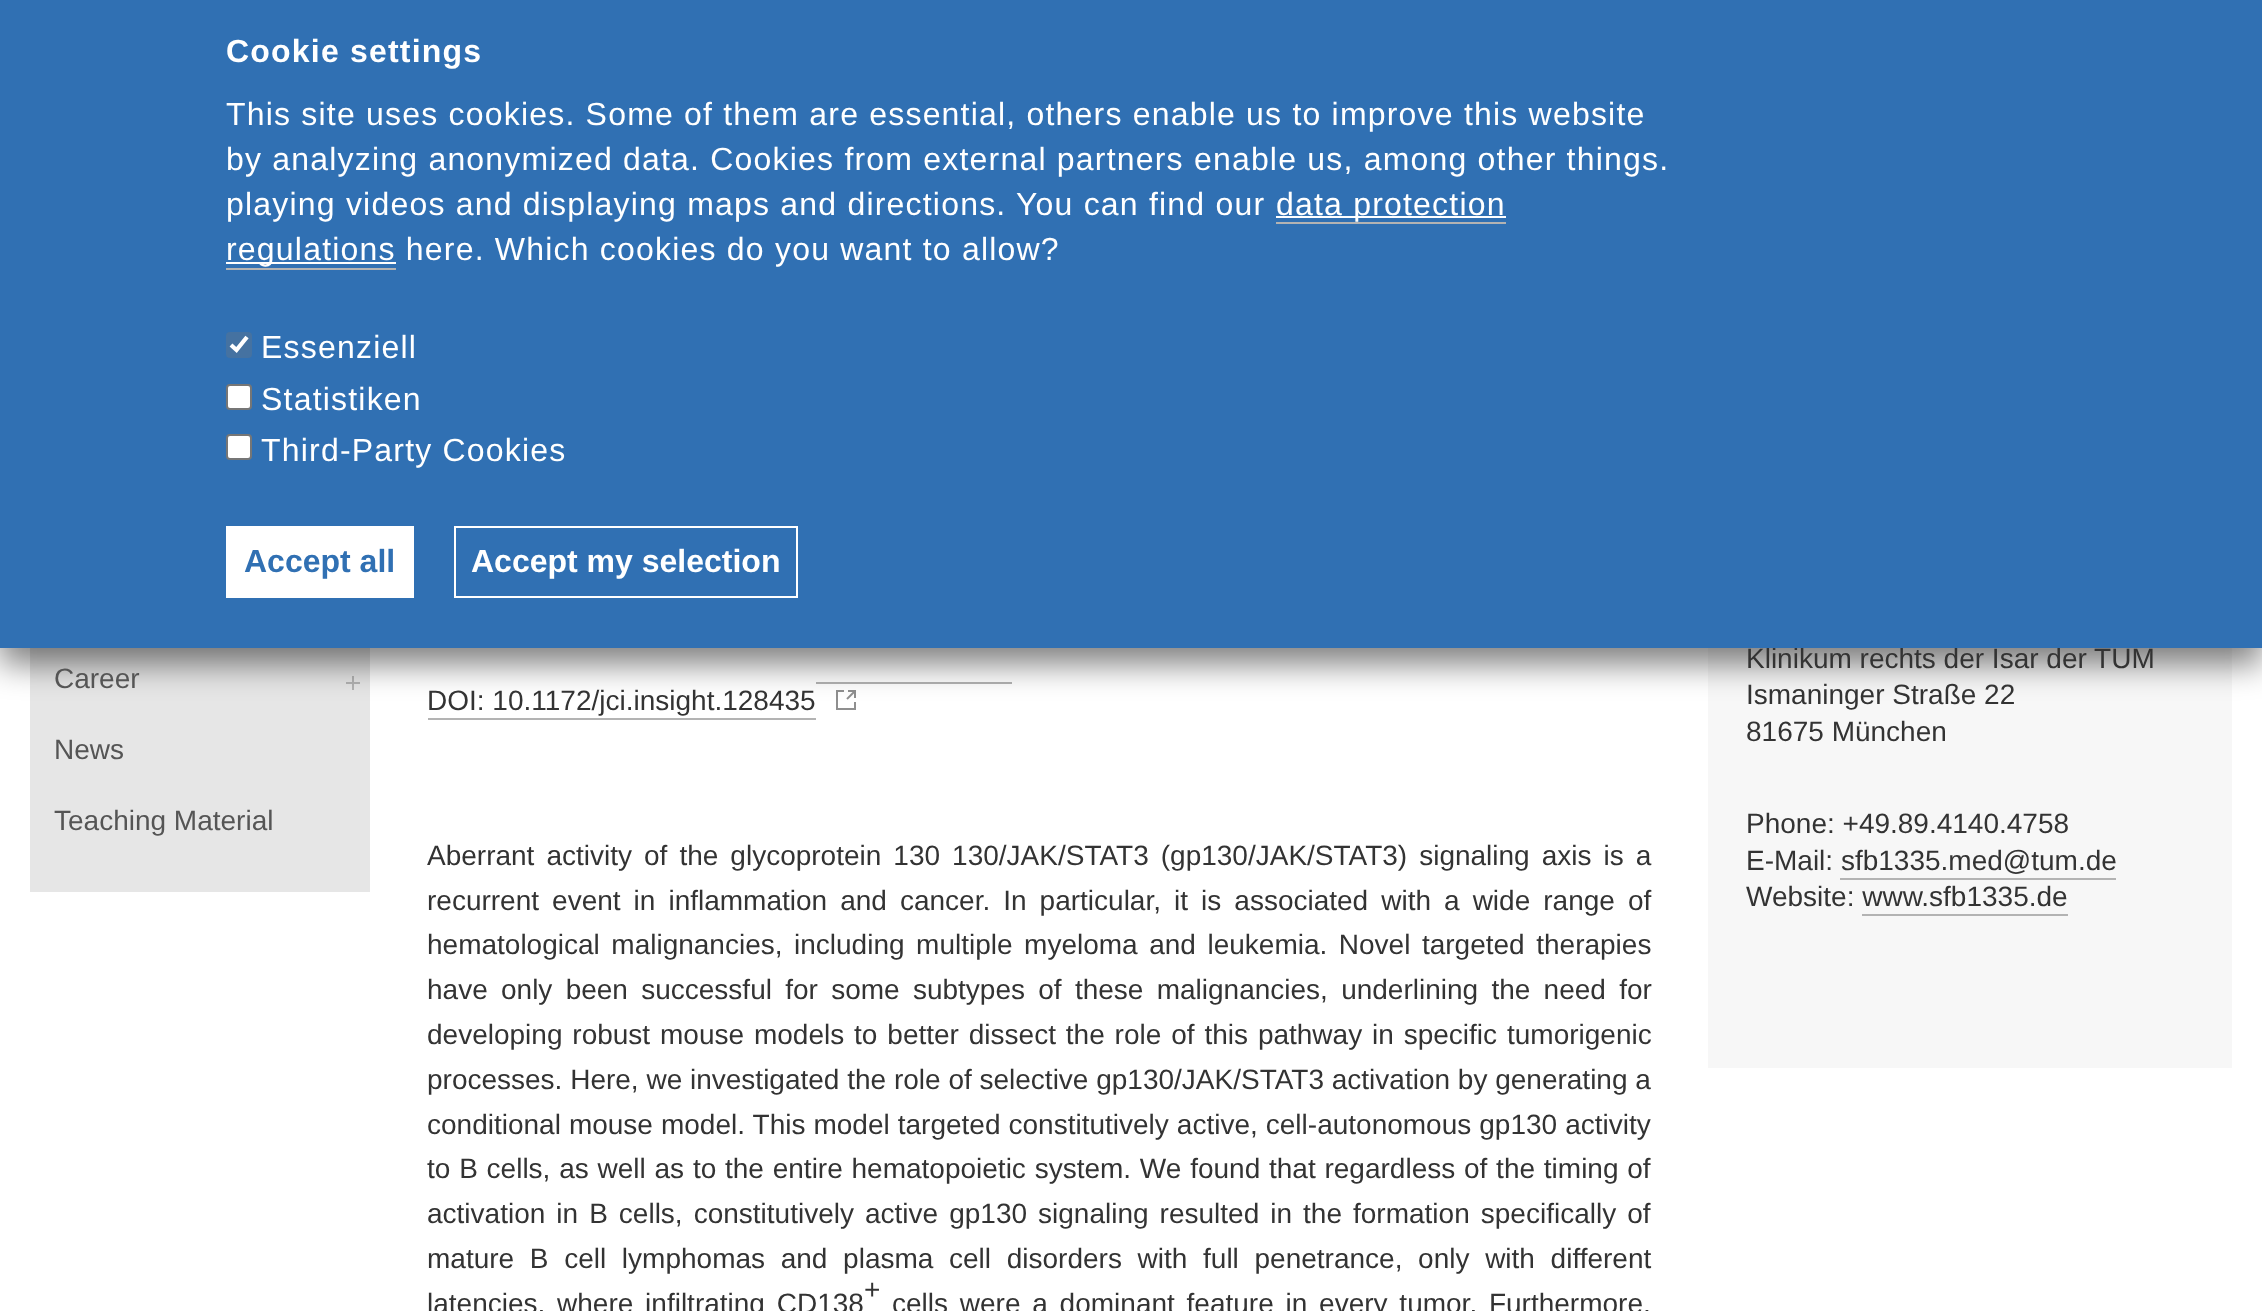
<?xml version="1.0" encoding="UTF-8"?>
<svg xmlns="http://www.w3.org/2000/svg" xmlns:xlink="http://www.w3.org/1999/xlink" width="2262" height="1311">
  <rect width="100%" height="100%" fill="#ffffff" />
  <rect x="30" y="648" width="340" height="244" fill="#e6e6e6" />
  <path d="M 353 677 v 12 m -6 -6 h 12" fill="none" stroke="#b3b3b3" stroke-width="2" stroke-linecap="square" stroke-linejoin="round" />
  <rect x="816" y="682" width="196" height="2" fill="#b3b3b3" />
  <image x="836" y="690" width="20" height="20" xlink:href="image1.png" />
  <rect x="1708" y="648" width="524" height="420" fill="#f7f7f7" />
  <rect y="16" width="2262" height="648" fill="#000000" fill-opacity="0.5" filter="blur(16px)" />
  <rect x="428" y="718" width="388" height="2" fill="#b3b3b3" />
  <rect x="1840" y="878" width="276" height="2" fill="#b3b3b3" />
  <rect x="1862" y="914" width="206" height="2" fill="#b3b3b3" />
  <text x="54" y="688" style="font-family: Liberation Sans; font-size: 28px; fill: #555555">Career</text>
  <text x="54" y="759" style="font-family: Liberation Sans; font-size: 28px; fill: #555555">News</text>
  <text x="54" y="830" style="font-family: Liberation Sans; font-size: 28px; fill: #555555">Teaching Material</text>
  <text x="427" y="710" style="font-family: Liberation Sans; font-size: 28px; fill: #333333">DOI: 10.1172/jci.insight.128435</text>
  <text x="427" y="865" word-spacing="4.25" style="font-family: Liberation Sans; font-size: 28px; fill: #333333">Aberrant activity of the glycoprotein 130 130/JAK/STAT3 (gp130/JAK/STAT3) signaling axis is a</text>
  <text x="427" y="910" word-spacing="5.25" style="font-family: Liberation Sans; font-size: 28px; fill: #333333">recurrent event in inflammation and cancer. In particular, it is associated with a wide range of</text>
  <text x="427" y="954" word-spacing="3.75" style="font-family: Liberation Sans; font-size: 28px; fill: #333333">hematological malignancies, including multiple myeloma and leukemia. Novel targeted therapies</text>
  <text x="427" y="999" word-spacing="5.5" style="font-family: Liberation Sans; font-size: 28px; fill: #333333">have only been successful for some subtypes of these malignancies, underlining the need for</text>
  <text x="427" y="1044" word-spacing="2.1" style="font-family: Liberation Sans; font-size: 28px; fill: #333333">developing robust mouse models to better dissect the role of this pathway in specific tumorigenic</text>
  <text x="427" y="1089" style="font-family: Liberation Sans; font-size: 28px; fill: #333333">processes. Here, we investigated the role of selective gp130/JAK/STAT3 activation by generating a</text>
  <text x="427" y="1134" word-spacing="0.25" style="font-family: Liberation Sans; font-size: 28px; fill: #333333">conditional mouse model. This model targeted constitutively active, cell-autonomous gp130 activity</text>
  <text x="427" y="1178" word-spacing="1" style="font-family: Liberation Sans; font-size: 28px; fill: #333333">to B cells, as well as to the entire hematopoietic system. We found that regardless of the timing of</text>
  <text x="427" y="1223" word-spacing="3.25" style="font-family: Liberation Sans; font-size: 28px; fill: #333333">activation in B cells, constitutively active gp130 signaling resulted in the formation specifically of</text>
  <text x="427" y="1268" word-spacing="7.9" style="font-family: Liberation Sans; font-size: 28px; fill: #333333">mature B cell lymphomas and plasma cell disorders with full penetrance, only with different</text>
  <text x="864" y="1299" style="font-family: Liberation Sans; font-size: 28px; fill: #333333">+</text>
  <text x="427" y="1313" word-spacing="4" style="font-family: Liberation Sans; font-size: 28px; fill: #333333">latencies, where infiltrating CD138</text>
  <text x="892" y="1313" word-spacing="4" style="font-family: Liberation Sans; font-size: 28px; fill: #333333">cells were a dominant feature in every tumor. Furthermore,</text>
  <text x="1746" y="668" style="font-family: Liberation Sans; font-size: 28px; fill: #333333">Klinikum rechts der Isar der TUM</text>
  <rect width="2262" height="648" fill="#3070b3" />
  <rect x="227" y="435" width="24" height="24" rx="3" fill="#ffffff" stroke="#767676" stroke-width="2" />
  <rect x="227" y="385" width="24" height="24" rx="3" fill="#ffffff" stroke="#767676" stroke-width="2" />
  <rect x="226" y="332" width="26" height="26" rx="4" fill="#4572a1" />
  <path d="M 231 345 l 5.5 5 l 10.5 -13" fill="none" stroke="#ffffff" stroke-width="4.2" />
  <text x="261" y="461" style="font-family: Liberation Sans; font-size: 32px; letter-spacing: 1.2px; fill: #ffffff">Third-Party Cookies</text>
  <text x="261" y="410" style="font-family: Liberation Sans; font-size: 32px; letter-spacing: 1.2px; fill: #ffffff">Statistiken</text>
  <text x="261" y="358" style="font-family: Liberation Sans; font-size: 32px; letter-spacing: 1.2px; fill: #ffffff">Essenziell</text>
  <rect x="455" y="527" width="342" height="70" fill="none" stroke="#ffffff" stroke-width="2" />
  <text x="471" y="572" style="font-family: Liberation Sans; font-size: 32px; font-weight: bold; fill: #ffffff">Accept my selection</text>
  <rect x="226" y="526" width="188" height="72" fill="#ffffff" />
  <text x="244" y="572" style="font-family: Liberation Sans; font-size: 32px; font-weight: bold; fill: #3070b3">Accept all</text>
  <rect x="226" y="262" width="170" height="2" fill="#ffffff" />
  <text x="226" y="260" style="font-family: Liberation Sans; font-size: 32px; letter-spacing: 1.2px; fill: #ffffff">regulations here. Which cookies do you want to allow?</text>
  <rect x="1276" y="216" width="230" height="2" fill="#ffffff" />
  <text x="1276" y="215" style="font-family: Liberation Sans; font-size: 32px; letter-spacing: 1.2px; fill: #ffffff">data protection</text>
  <rect x="226" y="268" width="170" height="2" fill="#b3b3b3" />
  <rect x="1276" y="222" width="230" height="2" fill="#b3b3b3" />
  <text x="226" y="215" style="font-family: Liberation Sans; font-size: 32px; letter-spacing: 1.2px; fill: #ffffff">playing videos and displaying maps and directions. You can find our</text>
  <text x="226" y="170" style="font-family: Liberation Sans; font-size: 32px; letter-spacing: 1.2px; fill: #ffffff">by analyzing anonymized data. Cookies from external partners enable us, among other things.</text>
  <text x="226" y="125" style="font-family: Liberation Sans; font-size: 32px; letter-spacing: 1.2px; fill: #ffffff">This site uses cookies. Some of them are essential, others enable us to improve this website</text>
  <text x="226" y="62" style="font-family: Liberation Sans; font-size: 32px; font-weight: bold; letter-spacing: 1.2px; fill: #ffffff">Cookie settings</text>
  <text x="1746" y="704" style="font-family: Liberation Sans; font-size: 28px; fill: #333333">Ismaninger Straße 22</text>
  <text x="1746" y="741" style="font-family: Liberation Sans; font-size: 28px; fill: #333333">81675 München</text>
  <text x="1746" y="833" style="font-family: Liberation Sans; font-size: 28px; fill: #333333">Phone: +49.89.4140.4758</text>
  <text x="1746" y="870" style="font-family: Liberation Sans; font-size: 28px; fill: #333333">E-Mail: sfb1335.med@tum.de</text>
  <text x="1746" y="906" style="font-family: Liberation Sans; font-size: 28px; fill: #333333">Website: www.sfb1335.de</text>
</svg>
